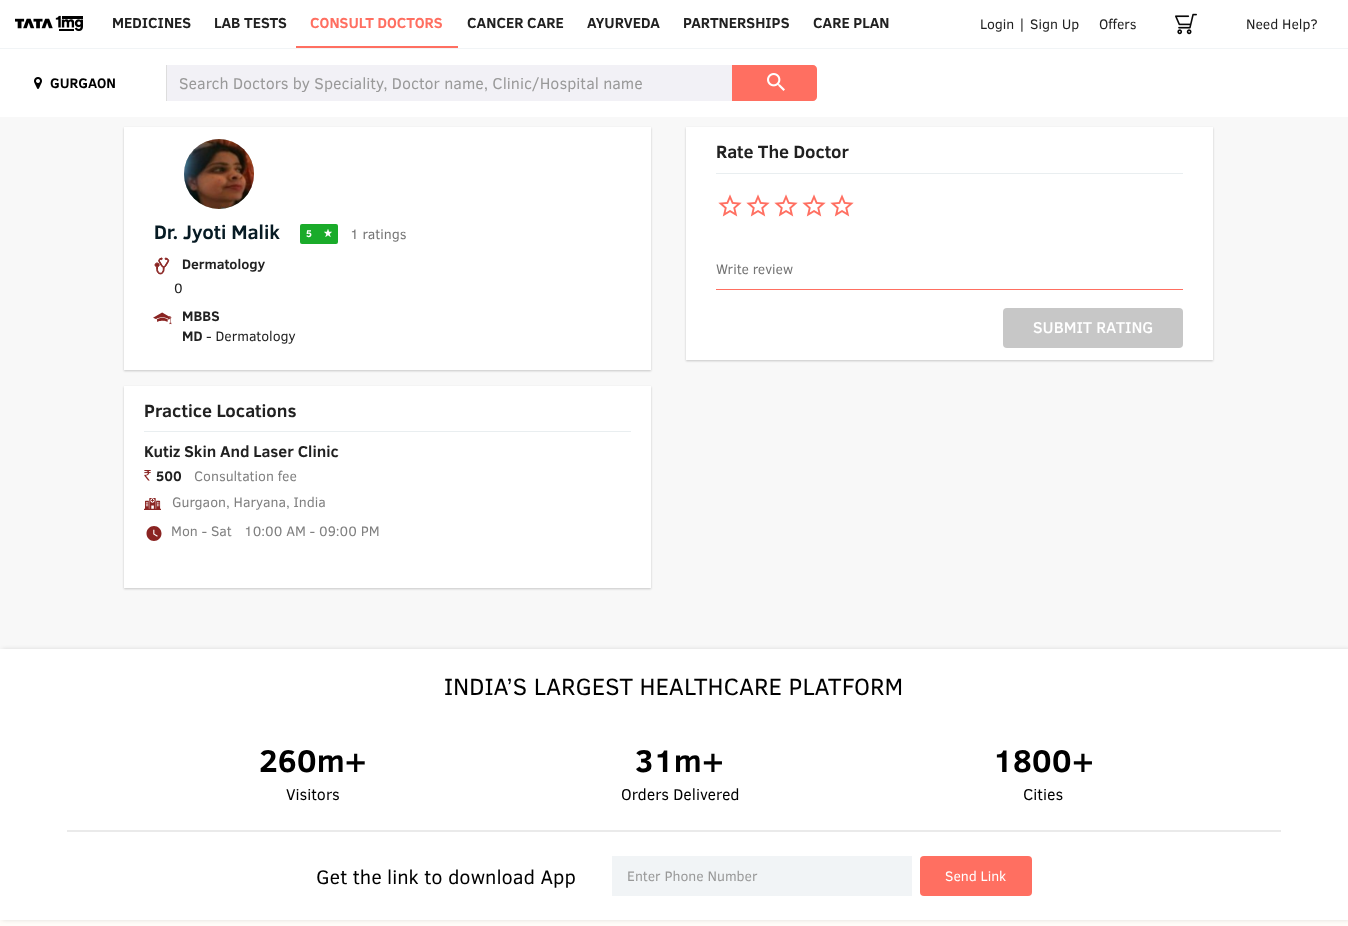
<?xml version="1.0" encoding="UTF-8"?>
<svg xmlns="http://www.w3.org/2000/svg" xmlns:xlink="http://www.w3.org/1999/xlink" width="1348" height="926">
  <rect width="100%" height="100%" fill="#f8f8f8" />
  <rect width="1348" height="48" fill="#ffffff" />
  <rect y="48" width="1348" height="1" fill="#f1f4f6" />
  <image x="15" y="15" width="68" height="17" xlink:href="image1.png" />
  <rect x="296" y="46" width="162" height="2" fill="#ff6f61" />
  <image x="1175" y="13" width="22" height="22" xlink:href="image2.png" />
  <rect y="49" width="1348" height="68" fill="#ffffff" />
  <image x="34" y="77" width="8" height="12" xlink:href="image3.png" />
  <rect x="167" y="65" width="565" height="36" fill="#f2f1f6" />
  <rect x="166" y="65" width="1" height="36" fill="#dddddd" />
  <path d="M 732 65 h 81 c 2 0 4 2 4 4 v 28 c 0 2 -2 4 -4 4 h -81 z" fill="#ff6f61" />
  <image x="767" y="73" width="18" height="18" xlink:href="image4.png" />
  <rect x="124" y="128" width="527" height="243" fill="#000000" fill-opacity="0.2" filter="blur(1px)" />
  <rect x="124" y="127" width="527" height="243" fill="#ffffff" />
  <circle cx="219" cy="174" r="35" fill="#bcbcbc" />
  <image x="184" y="139" width="70" height="70" xlink:href="image5.png" />
  <rect x="300" y="224" width="38" height="20" rx="2" fill="#1aab2a" />
  <image x="324" y="229" width="8" height="8" xlink:href="image6.png" />
  <image x="154" y="257" width="16" height="18" xlink:href="image7.png" />
  <image x="153" y="312" width="19" height="13" xlink:href="image8.png" />
  <rect x="124" y="387" width="527" height="202" fill="#000000" fill-opacity="0.2" filter="blur(1px)" />
  <rect x="124" y="386" width="527" height="202" fill="#ffffff" />
  <rect x="144" y="431" width="487" height="1" fill="#e9eef0" />
  <image x="144" y="470" width="7" height="11" xlink:href="image9.png" />
  <image x="144" y="498" width="17" height="12" xlink:href="image10.png" />
  <image x="146" y="526" width="16" height="15" xlink:href="image11.png" />
  <rect x="686" y="128" width="527" height="233" fill="#000000" fill-opacity="0.2" filter="blur(1px)" />
  <rect x="686" y="127" width="527" height="233" fill="#ffffff" />
  <rect x="716" y="173" width="467" height="1" fill="#e9eef0" />
  <image x="718" y="194" width="24" height="23" xlink:href="image12.png" />
  <image x="746" y="194" width="24" height="23" xlink:href="image12.png" />
  <image x="774" y="194" width="24" height="23" xlink:href="image12.png" />
  <image x="802" y="194" width="24" height="23" xlink:href="image12.png" />
  <image x="830" y="194" width="24" height="23" xlink:href="image12.png" />
  <rect x="716" y="289" width="467" height="1" fill="#ff6f61" />
  <rect x="1003" y="308" width="180" height="40" rx="4" fill="#c7c7c7" />
  <rect y="920" width="1348" height="6" fill="#fffcf8" />
  <rect x="2" y="649" width="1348" height="271" fill="#000000" fill-opacity="0.12" filter="blur(2px)" />
  <rect y="649" width="1348" height="271" fill="#ffffff" />
  <rect x="67" y="830" width="1214" height="2" fill="#eaeaea" />
  <rect x="612" y="856" width="300" height="40" fill="#f1f4f6" />
  <rect x="920" y="856" width="112" height="40" rx="4" fill="#ff6f61" />
  <text x="112" y="28" style="font-family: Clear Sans; font-size: 14.75px; font-weight: bold; fill: #212121">MEDICINES</text>
  <text x="214" y="28" style="font-family: Clear Sans; font-size: 14.75px; font-weight: bold; fill: #212121">LAB TESTS</text>
  <text x="310" y="28" style="font-family: Clear Sans; font-size: 14.75px; font-weight: bold; fill: #ff6f61">CONSULT DOCTORS</text>
  <text x="467" y="28" style="font-family: Clear Sans; font-size: 14.75px; font-weight: bold; fill: #212121">CANCER CARE</text>
  <text x="587" y="28" style="font-family: Clear Sans; font-size: 14.75px; font-weight: bold; fill: #212121">AYURVEDA</text>
  <text x="683" y="28" style="font-family: Clear Sans; font-size: 14.75px; font-weight: bold; fill: #212121">PARTNERSHIPS</text>
  <text x="813" y="28" style="font-family: Clear Sans; font-size: 14.75px; font-weight: bold; fill: #212121">CARE PLAN</text>
  <text x="980" y="29" style="font-family: Clear Sans; font-size: 14px; fill: #212121">Login</text>
  <text x="1019" y="29" style="font-family: Clear Sans; font-size: 14px; fill: #212121">|</text>
  <text x="1030" y="29" style="font-family: Clear Sans; font-size: 14px; fill: #212121">Sign Up</text>
  <text x="1099" y="29" style="font-family: Clear Sans; font-size: 14px; fill: #212121">Offers</text>
  <text x="1246" y="29" style="font-family: Clear Sans; font-size: 14px; fill: #212121">Need Help?</text>
  <text x="50" y="88" style="font-family: Clear Sans; font-size: 14px; font-weight: bold; fill: #000000">GURGAON</text>
  <text x="179" y="89" style="font-family: Clear Sans; font-size: 16px; fill: #999999">Search Doctors by Speciality, Doctor name, Clinic/Hospital name</text>
  <text x="154" y="239" style="font-family: Clear Sans; font-size: 20px; font-weight: bold; fill: #071b24">Dr. Jyoti Malik</text>
  <text x="306" y="237" style="font-family: Clear Sans; font-size: 10px; font-weight: bold; fill: #ffffff">5</text>
  <text x="350" y="239" style="font-family: Clear Sans; font-size: 14px; fill: #757575">1 ratings</text>
  <text x="182" y="269" style="font-family: Clear Sans; font-size: 14px; font-weight: bold; fill: #212121">Dermatology</text>
  <text x="174" y="293" style="font-family: Clear Sans; font-size: 14px; fill: #212121">0</text>
  <text x="182" y="321" style="font-family: Clear Sans; font-size: 14px; font-weight: bold; fill: #212121">MBBS</text>
  <text x="182" y="341" style="font-family: Clear Sans; font-size: 14px; font-weight: bold; fill: #212121">MD</text>
  <text x="206" y="341" style="font-family: Clear Sans; font-size: 14px; fill: #212121">- Dermatology</text>
  <text x="144" y="417" style="font-family: Clear Sans; font-size: 18px; font-weight: bold; fill: #212121">Practice Locations</text>
  <text x="144" y="457" style="font-family: Clear Sans; font-size: 16px; font-weight: bold; fill: #212121">Kutiz Skin And Laser Clinic</text>
  <text x="156" y="481" style="font-family: Clear Sans; font-size: 14px; font-weight: bold; fill: #212121">500</text>
  <text x="194" y="481" style="font-family: Clear Sans; font-size: 14px; fill: #808080">Consultation fee</text>
  <text x="172" y="507" style="font-family: Clear Sans; font-size: 14px; fill: #808080">Gurgaon, Haryana, India</text>
  <text x="171" y="536" style="font-family: Clear Sans; font-size: 14px; fill: #808080">Mon - Sat</text>
  <text x="244" y="536" style="font-family: Clear Sans; font-size: 14px; fill: #808080">10:00 AM - 09:00 PM</text>
  <text x="716" y="158" style="font-family: Clear Sans; font-size: 18px; font-weight: bold; fill: #212121">Rate The Doctor</text>
  <text x="716" y="274" style="font-family: Clear Sans; font-size: 14px; fill: #757575">Write review</text>
  <text x="1033" y="333" style="font-family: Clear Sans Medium; font-size: 16px; font-weight: 500; fill: #ffffff">SUBMIT RATING</text>
  <text x="444" y="695" style="font-family: Clear Sans; font-size: 24px; fill: #000000">INDIA’S LARGEST HEALTHCARE PLATFORM</text>
  <text x="259" y="772" style="font-family: Clear Sans; font-size: 32px; font-weight: bold; fill: #000000">260m+</text>
  <text x="286" y="800" style="font-family: Clear Sans; font-size: 16px; fill: #000000">Visitors</text>
  <text x="635" y="772" style="font-family: Clear Sans; font-size: 32px; font-weight: bold; fill: #000000">31m+</text>
  <text x="621" y="800" style="font-family: Clear Sans; font-size: 16px; fill: #000000">Orders Delivered</text>
  <text x="993" y="772" style="font-family: Clear Sans; font-size: 32px; font-weight: bold; fill: #000000">1800+</text>
  <text x="1023" y="800" style="font-family: Clear Sans; font-size: 16px; fill: #000000">Cities</text>
  <text x="316" y="884" style="font-family: Clear Sans; font-size: 20px; fill: #000000">Get the link to download App</text>
  <text x="627" y="881" style="font-family: Clear Sans; font-size: 14px; fill: #999999">Enter Phone Number</text>
  <text x="945" y="881" style="font-family: Clear Sans; font-size: 14px; fill: #ffffff">Send Link</text>
</svg>
